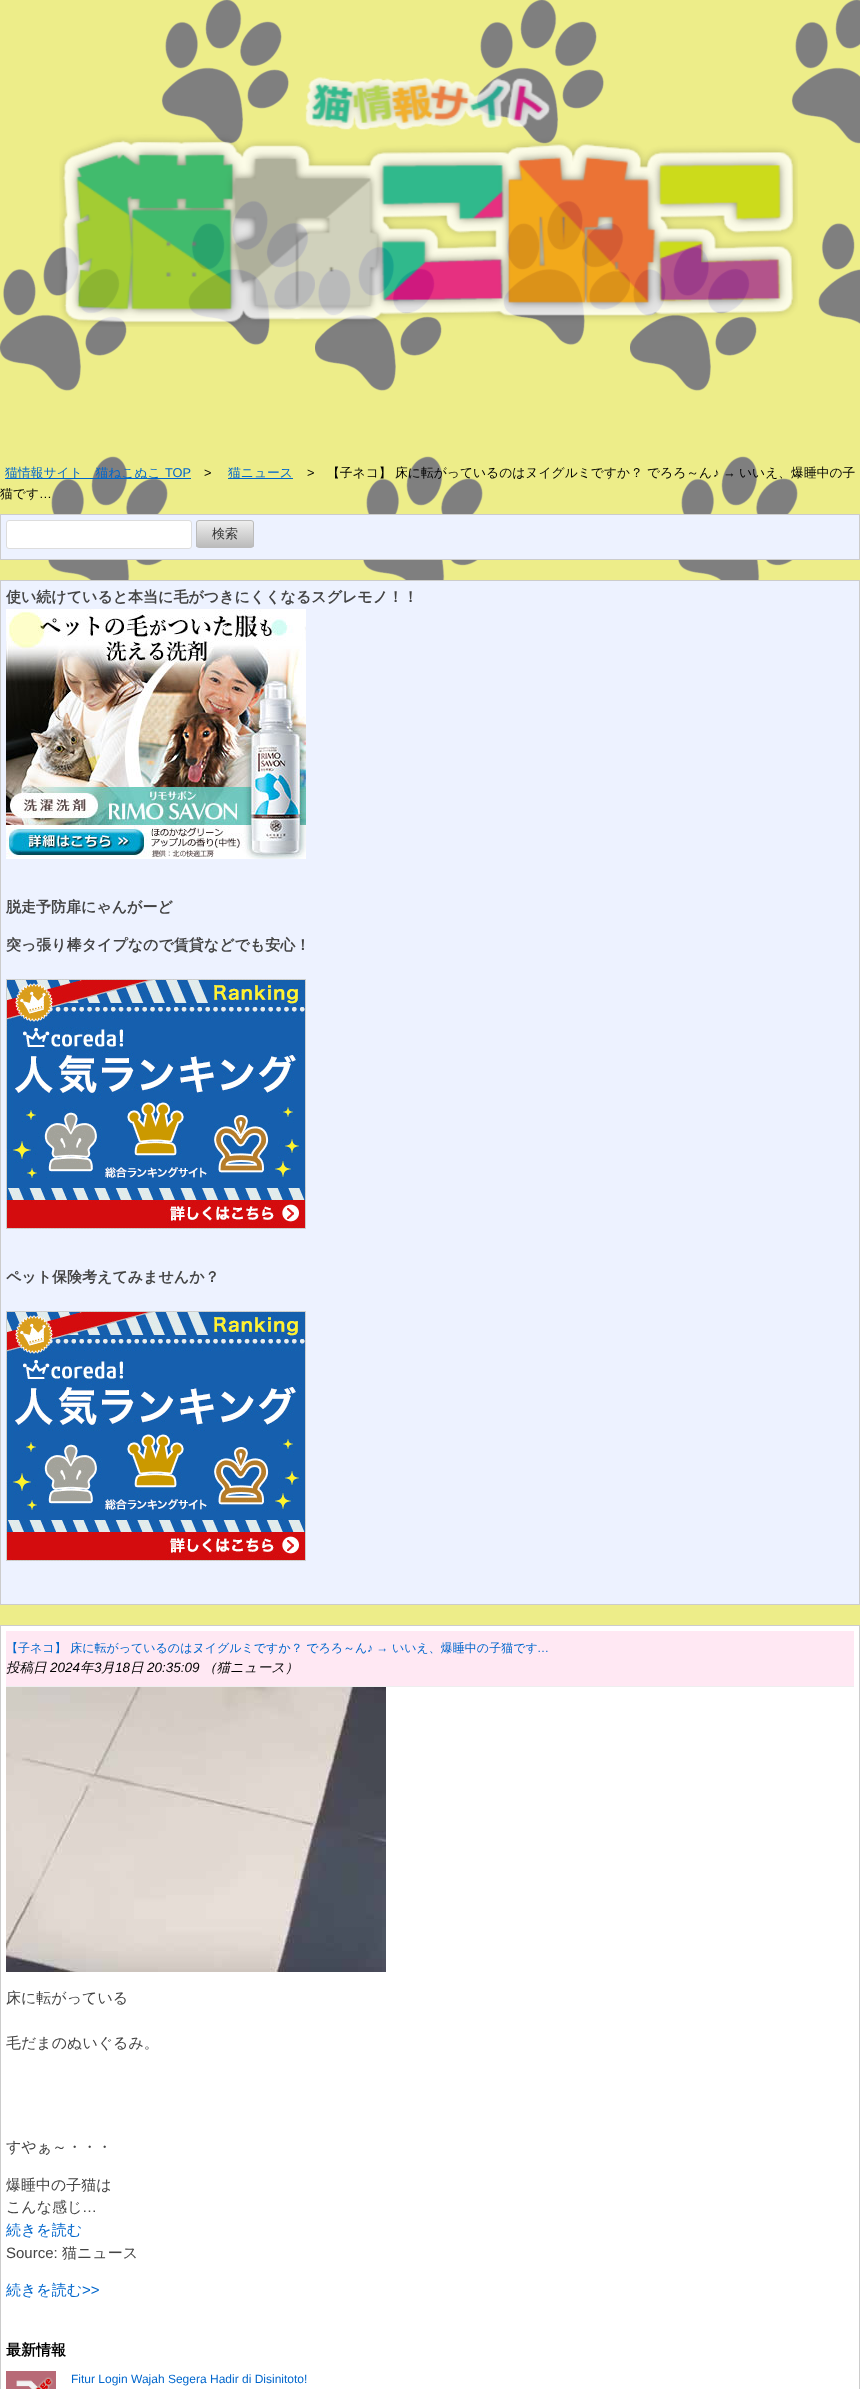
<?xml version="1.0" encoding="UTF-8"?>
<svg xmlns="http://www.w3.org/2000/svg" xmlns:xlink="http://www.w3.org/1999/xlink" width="860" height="2389">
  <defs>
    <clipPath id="clip1"><rect x="196" y="520" width="58" height="28" rx="3" /></clipPath>
    <linearGradient id="g1" gradientUnits="userSpaceOnUse" x1="225" y1="521" x2="225" y2="547"><stop offset="0" stop-color="#eeeeee" /><stop offset="1" stop-color="#bbbbbb" /></linearGradient>
  </defs>
  <rect width="100%" height="100%" fill="#eded89" />
  <image x="0" y="0" width="860" height="580" xlink:href="image1.png" />
  <image x="59" y="77" width="739" height="250" xlink:href="image2.png" />
  <rect x="5" y="478" width="186" height="1" fill="#0066cc" />
  <rect x="228" y="478" width="65" height="1" fill="#0066cc" />
  <rect x="0.5" y="514.5" width="859" height="45" fill="#edf2ff" stroke="#cccccc" />
  <rect x="6.5" y="520.5" width="185" height="28" rx="2.5" fill="#ffffff" stroke="#dddddd" />
  <g clip-path="url(#clip1)">
    <rect x="196" y="521" width="58" height="26" fill="url(#g1)" />
  </g>
  <rect x="196.5" y="520.5" width="57" height="27" rx="2.5" fill="none" stroke="#bbbbbb" />
  <rect x="0.5" y="580.5" width="859" height="1024" fill="#edf2ff" stroke="#cccccc" />
  <image x="6" y="609" width="300" height="250" xlink:href="image3.png" />
  <image x="6" y="979" width="300" height="250" xlink:href="image4.png" />
  <image x="6" y="1311" width="300" height="250" xlink:href="image4.png" />
  <rect x="0.5" y="1625.5" width="859" height="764" fill="#ffffff" stroke="#cccccc" />
  <rect x="6" y="1631" width="848" height="55" fill="#ffe8f3" />
  <rect x="6" y="1686" width="848" height="1" fill="#eeeeee" />
  <image x="6" y="1687" width="380" height="285" xlink:href="image5.png" />
  <image x="6" y="2371" width="50" height="18" xlink:href="image6.png" />
  <text x="5" y="477" style="font-family: WenQuanYi Zen Hei; font-size: 12.8px; font-weight: 500; fill: #0066cc">猫情報サイト　猫ねこぬこ</text>
  <text x="165" y="477" style="font-family: Liberation Sans; font-size: 12.8px; fill: #0066cc">TOP</text>
  <text x="204" y="477" style="font-family: Liberation Sans; font-size: 12.8px; fill: #000000">&gt;</text>
  <text x="228" y="477" style="font-family: WenQuanYi Zen Hei; font-size: 12.8px; font-weight: 500; fill: #0066cc">猫ニュース</text>
  <text x="307" y="477" style="font-family: Liberation Sans; font-size: 12.8px; fill: #000000">&gt;</text>
  <text x="327" y="477" style="font-family: WenQuanYi Zen Hei; font-size: 12.8px; font-weight: 500; fill: #000000">【子ネコ】</text>
  <text x="395" y="477" style="font-family: WenQuanYi Zen Hei; font-size: 12.8px; font-weight: 500; fill: #000000">床に転がっているのはヌイグルミですか？</text>
  <text x="647" y="477" style="font-family: WenQuanYi Zen Hei; font-size: 12.8px; font-weight: 500; fill: #000000">でろろ～ん</text>
  <text x="713" y="477" style="font-family: Liberation Sans; font-size: 12.8px; fill: #000000">♪ →</text>
  <text x="739" y="477" style="font-family: WenQuanYi Zen Hei; font-size: 12.8px; font-weight: 500; fill: #000000">いいえ、爆睡中の子</text>
  <text x="0" y="498" style="font-family: WenQuanYi Zen Hei; font-size: 12.8px; font-weight: 500; fill: #000000">猫です</text>
  <text x="39" y="498" style="font-family: Liberation Sans; font-size: 12.8px; fill: #000000">…</text>
  <text x="212" y="538" style="font-family: WenQuanYi Zen Hei; font-size: 13px; font-weight: 500; fill: #333333">検索</text>
  <text x="6" y="602" style="font-family: WenQuanYi Zen Hei; font-size: 15px; font-weight: bold; fill: #444444">使い続けていると本当に毛がつきにくくなるスグレモノ！！</text>
  <text x="6" y="912" style="font-family: WenQuanYi Zen Hei; font-size: 15px; font-weight: bold; fill: #444444">脱走予防扉にゃんがーど</text>
  <text x="6" y="950" style="font-family: WenQuanYi Zen Hei; font-size: 15px; font-weight: bold; fill: #444444">突っ張り棒タイプなので賃貸などでも安心！</text>
  <text x="6" y="1282" style="font-family: WenQuanYi Zen Hei; font-size: 15px; font-weight: bold; fill: #444444">ペット保険考えてみませんか？</text>
  <text x="6" y="1652" style="font-family: WenQuanYi Zen Hei; font-size: 12px; font-weight: 500; fill: #0066cc">【子ネコ】 床に転がっているのはヌイグルミですか？ でろろ～ん</text>
  <text x="367" y="1652" style="font-family: Liberation Sans; font-size: 12px; fill: #0066cc">♪ →</text>
  <text x="392" y="1652" style="font-family: WenQuanYi Zen Hei; font-size: 12px; font-weight: 500; fill: #0066cc">いいえ、爆睡中の子猫です</text>
  <text x="537" y="1652" style="font-family: Liberation Sans; font-size: 12px; fill: #0066cc">…</text>
  <text x="6" y="1672" style="font-family: WenQuanYi Zen Hei; font-size: 13.5px; font-weight: 500; font-style: italic; fill: #000000">投稿日</text>
  <text x="50" y="1672" style="font-family: Liberation Sans; font-size: 13.5px; font-style: italic; fill: #000000">2024</text>
  <text x="80" y="1672" style="font-family: WenQuanYi Zen Hei; font-size: 13.5px; font-weight: 500; font-style: italic; fill: #000000">年</text>
  <text x="94" y="1672" style="font-family: Liberation Sans; font-size: 13.5px; font-style: italic; fill: #000000">3</text>
  <text x="101" y="1672" style="font-family: WenQuanYi Zen Hei; font-size: 13.5px; font-weight: 500; font-style: italic; fill: #000000">月</text>
  <text x="115" y="1672" style="font-family: Liberation Sans; font-size: 13.5px; font-style: italic; fill: #000000">18</text>
  <text x="130" y="1672" style="font-family: WenQuanYi Zen Hei; font-size: 13.5px; font-weight: 500; font-style: italic; fill: #000000">日</text>
  <text x="147" y="1672" style="font-family: Liberation Sans; font-size: 13.5px; font-style: italic; fill: #000000">20:35:09</text>
  <text x="203" y="1672" style="font-family: WenQuanYi Zen Hei; font-size: 13.5px; font-weight: 500; font-style: italic; fill: #000000">（猫ニュース）</text>
  <text x="6" y="2003" style="font-family: WenQuanYi Zen Hei; font-size: 15px; font-weight: 500; fill: #444444">床に転がっている</text>
  <text x="6" y="2048" style="font-family: WenQuanYi Zen Hei; font-size: 15px; font-weight: 500; fill: #444444">毛だまのぬいぐるみ。</text>
  <text x="6" y="2152" style="font-family: WenQuanYi Zen Hei; font-size: 15px; font-weight: 500; fill: #444444">すやぁ～・・・</text>
  <text x="6" y="2190" style="font-family: WenQuanYi Zen Hei; font-size: 15px; font-weight: 500; fill: #444444">爆睡中の子猫は</text>
  <text x="6" y="2212" style="font-family: WenQuanYi Zen Hei; font-size: 15px; font-weight: 500; fill: #444444">こんな感じ</text>
  <text x="82" y="2212" style="font-family: Liberation Sans; font-size: 15px; fill: #444444">…</text>
  <text x="6" y="2235" style="font-family: WenQuanYi Zen Hei; font-size: 15px; font-weight: 500; fill: #0066cc">続きを読む</text>
  <text x="6" y="2258" style="font-family: Liberation Sans; font-size: 15px; fill: #444444">Source:</text>
  <text x="62" y="2258" style="font-family: WenQuanYi Zen Hei; font-size: 15px; font-weight: 500; fill: #444444">猫ニュース</text>
  <text x="6" y="2295" style="font-family: WenQuanYi Zen Hei; font-size: 15px; font-weight: 500; fill: #0066cc">続きを読む</text>
  <text x="82" y="2295" style="font-family: Liberation Sans; font-size: 15px; fill: #0066cc">&gt;&gt;</text>
  <text x="6" y="2355" style="font-family: WenQuanYi Zen Hei; font-size: 15px; font-weight: bold; fill: #000000">最新情報</text>
  <text x="71" y="2383" style="font-family: Liberation Sans; font-size: 12px; fill: #0066cc">Fitur Login Wajah Segera Hadir di Disinitoto!</text>
</svg>
